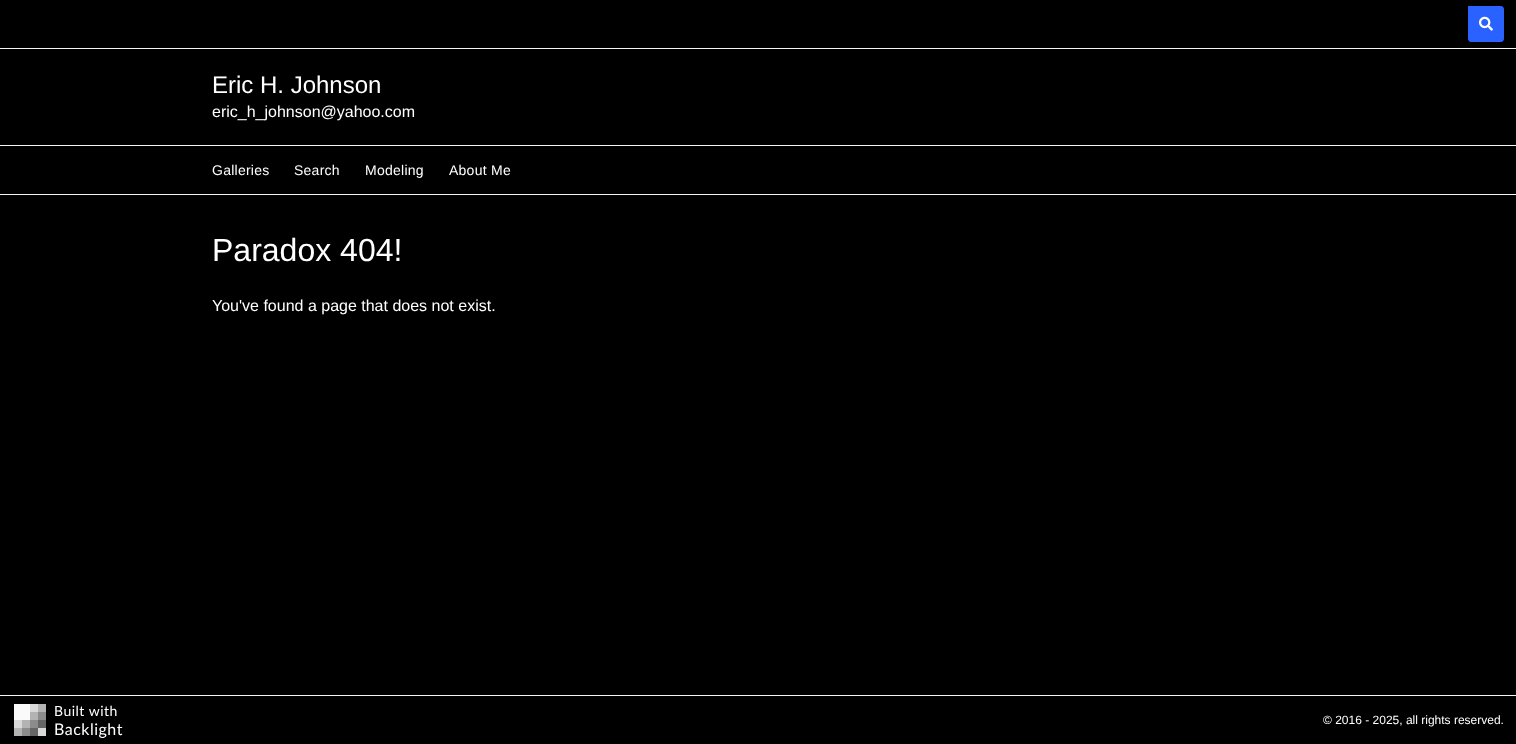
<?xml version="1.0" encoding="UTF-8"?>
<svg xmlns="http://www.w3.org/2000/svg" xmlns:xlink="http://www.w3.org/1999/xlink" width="1516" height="744">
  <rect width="100%" height="100%" fill="#000000" />
  <rect y="48" width="1516" height="1" fill="#f5f5f5" />
  <path d="M 1468 6 h 33 c 1.5 0 3 1.5 3 3 v 30 c 0 1.5 -1.5 3 -3 3 h -30 c -1.5 0 -3 -1.5 -3 -3 z" fill="#2962ff" />
  <image x="1479" y="16" width="14" height="15" xlink:href="image1.png" />
  <rect y="145" width="1516" height="1" fill="#f5f5f5" />
  <rect y="194" width="1516" height="1" fill="#f5f5f5" />
  <rect y="695" width="1516" height="1" fill="#f5f5f5" />
  <rect x="14" y="704" width="16" height="16" fill="#fafafa" />
  <rect x="30" y="704" width="8" height="8" fill="#d9d9d9" />
  <rect x="38" y="704" width="8" height="8" fill="#b3b3b3" />
  <rect x="30" y="712" width="8" height="8" fill="#b3b3b3" />
  <rect x="38" y="712" width="8" height="8" fill="#8c8c8c" />
  <rect x="14" y="720" width="8" height="8" fill="#d9d9d9" />
  <rect x="22" y="720" width="8" height="8" fill="#b3b3b3" />
  <rect x="30" y="720" width="8" height="8" fill="#8c8c8c" />
  <rect x="38" y="720" width="8" height="8" fill="#666666" />
  <rect x="14" y="728" width="8" height="8" fill="#b3b3b3" />
  <rect x="22" y="728" width="8" height="8" fill="#8c8c8c" />
  <rect x="30" y="728" width="8" height="8" fill="#666666" />
  <rect x="38" y="728" width="8" height="8" fill="#d9d9d9" />
  <text x="212" y="93" style="font-family: Liberation Sans; font-size: 24px; fill: #ffffff">Eric H. Johnson</text>
  <text x="212" y="117" style="font-family: Liberation Sans; font-size: 16px; fill: #ffffff">eric_h_johnson@yahoo.com</text>
  <text x="212" y="175" style="font-family: Liberation Sans; font-size: 14px; letter-spacing: 0.25px; fill: #ffffff">Galleries</text>
  <text x="294" y="175" style="font-family: Liberation Sans; font-size: 14px; letter-spacing: 0.25px; fill: #ffffff">Search</text>
  <text x="365" y="175" style="font-family: Liberation Sans; font-size: 14px; letter-spacing: 0.25px; fill: #ffffff">Modeling</text>
  <text x="449" y="175" style="font-family: Liberation Sans; font-size: 14px; letter-spacing: 0.25px; fill: #ffffff">About Me</text>
  <text x="212" y="261" style="font-family: Liberation Sans; font-size: 32px; fill: #ffffff">Paradox 404!</text>
  <text x="212" y="311" style="font-family: Liberation Sans; font-size: 16px; fill: #ffffff">You've found a page that does not exist.</text>
  <text x="54" y="716" style="font-family: Lato; font-size: 14px; letter-spacing: 0.5px; fill: #ffffff">Built with</text>
  <text x="54" y="735" style="font-family: Lato; font-size: 16px; letter-spacing: 0.5px; fill: #ffffff">Backlight</text>
  <text x="1323" y="724" style="font-family: Liberation Sans; font-size: 12px; fill: #ffffff">© 2016 - 2025, all rights reserved.</text>
</svg>
